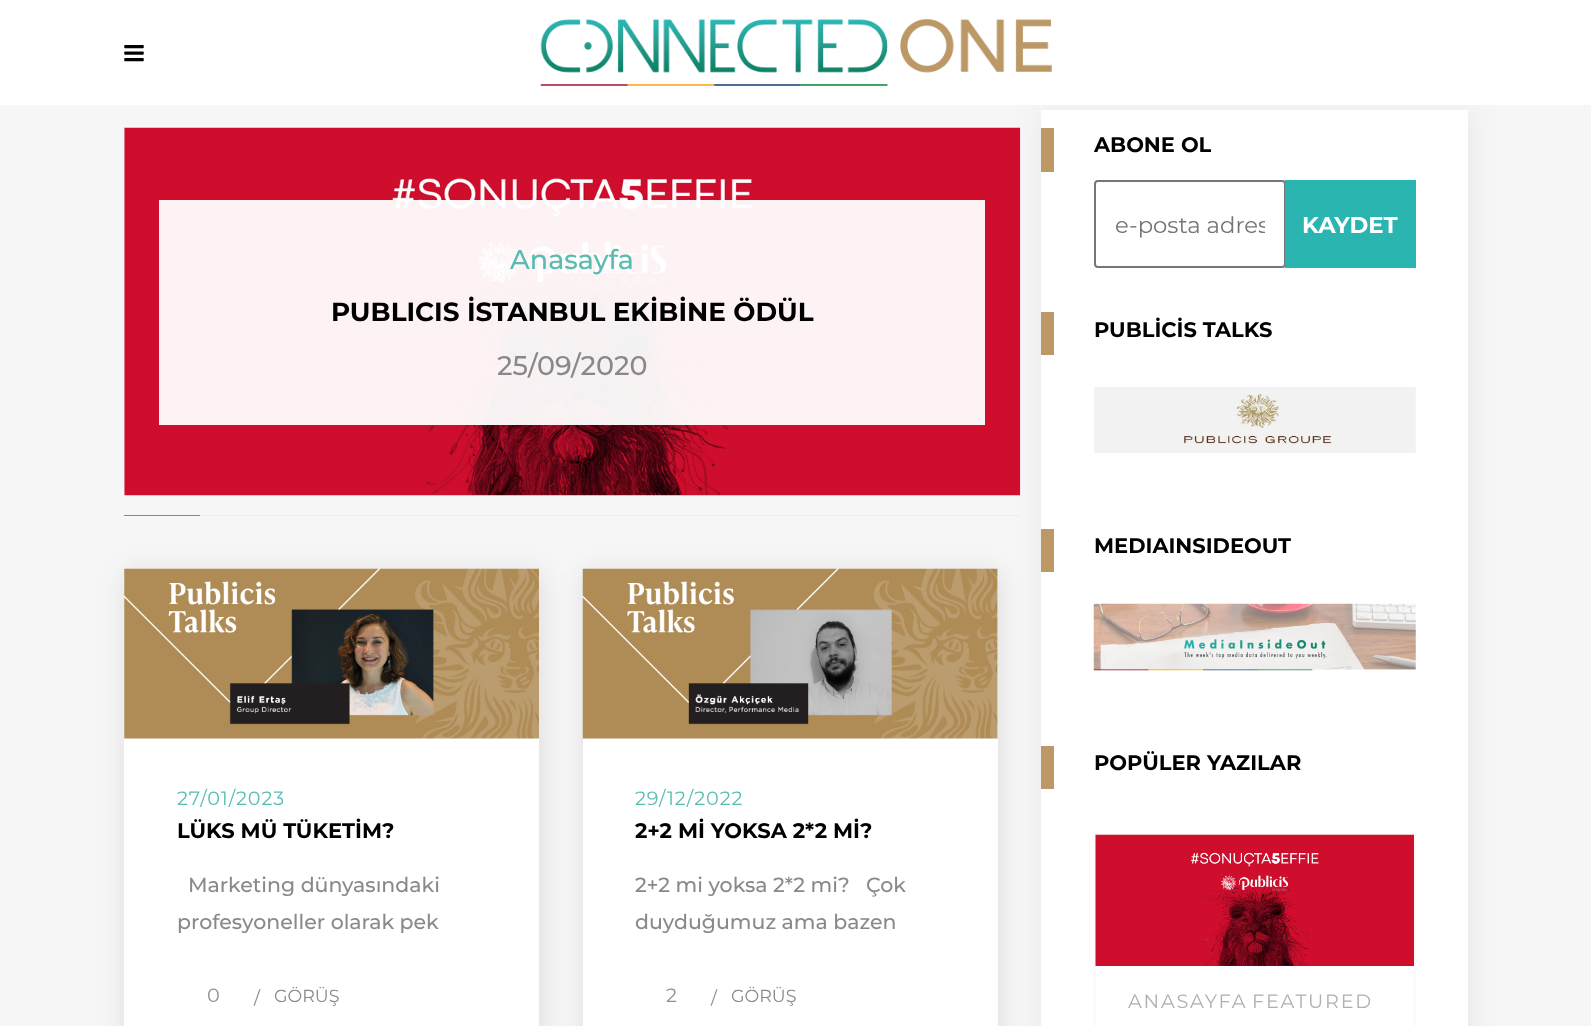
<?xml version="1.0" encoding="UTF-8"?>
<svg xmlns="http://www.w3.org/2000/svg" xmlns:xlink="http://www.w3.org/1999/xlink" width="1591" height="1026">
  <defs>
    <clipPath id="clip1"><rect x="1115" y="210" width="150" height="28" /></clipPath>
  </defs>
  <rect width="100%" height="100%" fill="#f6f6f6" />
  <rect x="1043" y="114" width="427" height="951" fill="#e5e5e5" filter="blur(13px)" />
  <rect width="1591" height="105" fill="#ffffff" />
  <image x="124" y="45" width="20" height="17" xlink:href="image1.png" />
  <image x="540" y="19" width="512" height="67" xlink:href="image2.png" />
  <image x="124" y="127" width="897" height="369" xlink:href="image3.png" />
  <rect x="159" y="200" width="826" height="225" fill="#ffffff" fill-opacity="0.95" />
  <rect x="124" y="515" width="76" height="1" fill="#2dada8" />
  <rect x="200" y="515" width="820" height="1" fill="#eeeeee" />
  <rect x="126" y="572" width="415" height="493" fill="#000000" fill-opacity="0.1" filter="blur(13px)" />
  <rect x="124" y="569" width="415" height="457" fill="#ffffff" />
  <image x="124" y="568" width="415" height="171" xlink:href="image4.png" />
  <rect x="585" y="572" width="414" height="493" fill="#000000" fill-opacity="0.1" filter="blur(13px)" />
  <rect x="583" y="569" width="415" height="457" fill="#ffffff" />
  <image x="582" y="568" width="416" height="171" xlink:href="image5.png" />
  <rect x="1041" y="110" width="427" height="916" fill="#ffffff" />
  <rect x="1041" y="128" width="13" height="44" fill="#bb9865" />
  <rect x="1095" y="181" width="190" height="86" rx="3" fill="none" stroke="#767676" stroke-width="2" />
  <rect x="1285" y="180" width="131" height="88" fill="#2bb5b1" />
  <rect x="1041" y="312" width="13" height="43" fill="#bb9865" />
  <image x="1094" y="387" width="322" height="66" xlink:href="image6.png" />
  <rect x="1041" y="529" width="13" height="43" fill="#bb9865" />
  <image x="1093" y="603" width="323" height="68" xlink:href="image7.png" />
  <rect x="1041" y="746" width="13" height="43" fill="#bb9865" />
  <rect x="1095" y="834" width="320" height="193" fill="none" stroke="#fafafa" stroke-width="2" />
  <image x="1095" y="834" width="319" height="132" xlink:href="image8.png" />
  <text x="510" y="269" style="font-family: Montserrat; font-size: 27px; font-weight: 500; fill: #58bcb3">Anasayfa</text>
  <text x="331" y="321" style="font-family: Montserrat; font-size: 26.25px; font-weight: bold; fill: #000000">PUBLICIS İSTANBUL EKİBİNE ÖDÜL</text>
  <text x="497" y="375" style="font-family: Montserrat; font-size: 27px; font-weight: 500; fill: #898989">25/09/2020</text>
  <text x="177" y="805" style="font-family: Montserrat; font-size: 19.25px; letter-spacing: 0.9px; fill: #58bcb3">27/01/2023</text>
  <text x="177" y="838" style="font-family: Montserrat; font-size: 21px; font-weight: bold; fill: #000000">LÜKS MÜ TÜKETİM?</text>
  <text x="188" y="892" style="font-family: Montserrat; font-size: 20.5px; font-weight: 500; fill: #898989">Marketing dünyasındaki</text>
  <text x="177" y="929" style="font-family: Montserrat; font-size: 20.5px; font-weight: 500; fill: #898989">profesyoneller olarak pek</text>
  <text x="207" y="1002" style="font-family: Montserrat; font-size: 19.25px; fill: #909090">0</text>
  <text x="254" y="1004" style="font-family: Montserrat; font-size: 17.5px; fill: #898989">/</text>
  <text x="274" y="1002" style="font-family: Montserrat; font-size: 17.5px; fill: #898989">GÖRÜŞ</text>
  <text x="635" y="805" style="font-family: Montserrat; font-size: 19.25px; letter-spacing: 0.9px; fill: #58bcb3">29/12/2022</text>
  <text x="635" y="838" style="font-family: Montserrat; font-size: 21px; font-weight: bold; fill: #000000">2+2 Mİ YOKSA 2*2 Mİ?</text>
  <text x="635" y="892" style="font-family: Montserrat; font-size: 20.5px; font-weight: 500; fill: #898989">2+2 mi yoksa 2*2 mi?</text>
  <text x="866" y="892" style="font-family: Montserrat; font-size: 20.5px; font-weight: 500; fill: #898989">Çok</text>
  <text x="635" y="929" style="font-family: Montserrat; font-size: 20.5px; font-weight: 500; fill: #898989">duyduğumuz ama bazen</text>
  <text x="666" y="1002" style="font-family: Montserrat; font-size: 19.25px; fill: #909090">2</text>
  <text x="711" y="1004" style="font-family: Montserrat; font-size: 17.5px; fill: #898989">/</text>
  <text x="731" y="1002" style="font-family: Montserrat; font-size: 17.5px; fill: #898989">GÖRÜŞ</text>
  <text x="1094" y="152" style="font-family: Montserrat; font-size: 21px; font-weight: bold; fill: #000000">ABONE OL</text>
  <g clip-path="url(#clip1)">
    <text x="1115" y="233" style="font-family: Montserrat; font-size: 22.75px; fill: #757575">e-posta adres</text>
  </g>
  <text x="1302" y="233" style="font-family: Montserrat; font-size: 22.75px; font-weight: bold; fill: #ffffff">KAYDET</text>
  <text x="1094" y="337" style="font-family: Montserrat; font-size: 21px; font-weight: bold; fill: #000000">PUBLİCİS TALKS</text>
  <text x="1094" y="553" style="font-family: Montserrat; font-size: 21px; font-weight: bold; fill: #000000">MEDIAINSIDEOUT</text>
  <text x="1094" y="770" style="font-family: Montserrat; font-size: 21px; font-weight: bold; fill: #000000">POPÜLER YAZILAR</text>
  <text x="1128" y="1008" style="font-family: Montserrat; font-size: 19.25px; letter-spacing: 1.75px; fill: #b0b0b0">ANASAYFA</text>
  <text x="1252" y="1008" style="font-family: Montserrat; font-size: 19.25px; letter-spacing: 1.75px; fill: #b0b0b0">FEATURED</text>
</svg>
